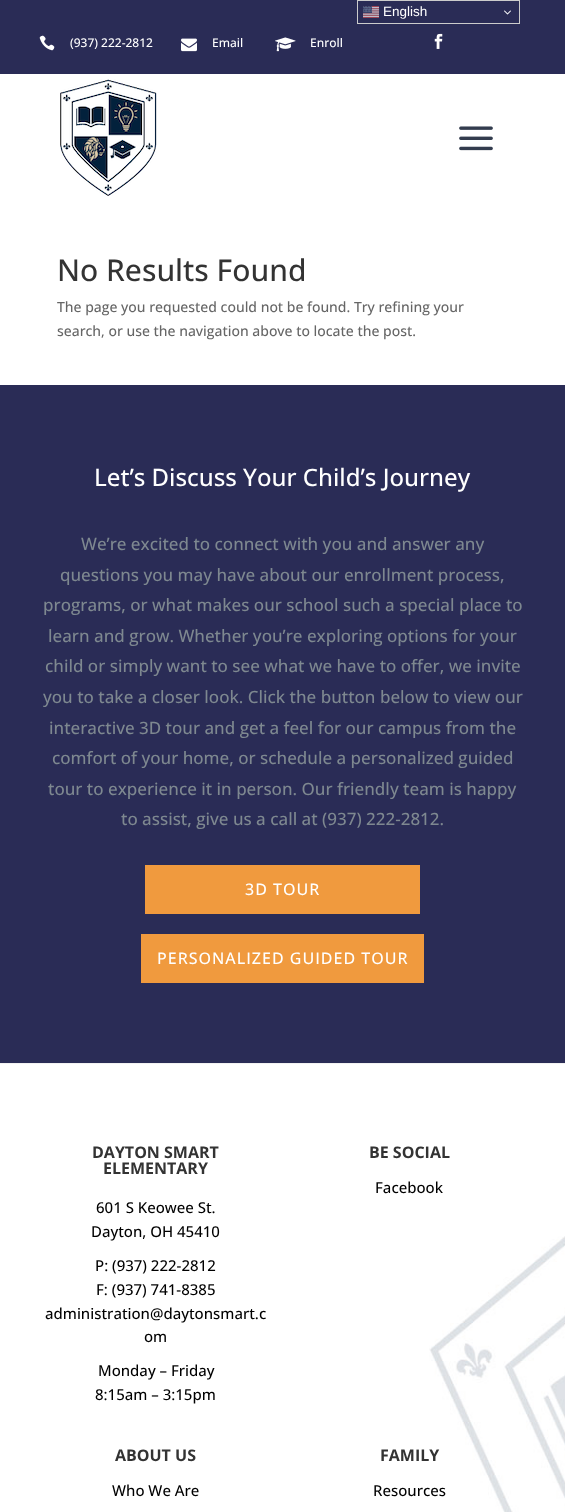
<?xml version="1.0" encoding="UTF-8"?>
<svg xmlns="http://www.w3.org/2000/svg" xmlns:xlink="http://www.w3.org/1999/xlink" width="565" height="1512">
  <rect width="100%" height="100%" fill="#ffffff" />
  <rect width="565" height="74" fill="#2a2c56" />
  <rect x="357.5" y="0.5" width="162" height="23" fill="none" stroke="#cccccc" />
  <image x="363" y="6" width="16" height="12" xlink:href="image1.png" />
  <image x="504" y="10" width="7" height="5" xlink:href="image2.png" />
  <image x="39" y="35" width="16" height="16" xlink:href="image3.png" />
  <image x="181" y="38" width="16" height="14" xlink:href="image4.png" />
  <image x="275" y="37" width="21" height="15" xlink:href="image5.png" />
  <image x="434" y="33" width="9" height="16" xlink:href="image6.png" />
  <image x="60" y="79" width="97" height="117" xlink:href="image7.png" />
  <image x="459" y="126" width="34" height="25" xlink:href="image8.png" />
  <rect y="385" width="565" height="678" fill="#2a2c56" />
  <rect x="145" y="865" width="275" height="49" fill="#f09a3e" />
  <rect x="141" y="934" width="283" height="49" fill="#f09a3e" />
  <image x="429" y="1236" width="136" height="276" xlink:href="image9.png" />
  <rect y="1063" width="565" height="1" fill="#f2f2f2" />
  <text x="383" y="16" style="font-family: Liberation Sans; font-size: 13.5px; fill: #ffffff">English</text>
  <text x="70" y="47" style="font-family: Open Sans; font-size: 12px; font-weight: 500; fill: #ffffff">(937) 222-2812</text>
  <text x="212" y="47" style="font-family: Open Sans; font-size: 12px; font-weight: 500; fill: #ffffff">Email</text>
  <text x="310" y="47" style="font-family: Open Sans; font-size: 12px; font-weight: 500; fill: #ffffff">Enroll</text>
  <text x="57" y="281" style="font-family: Open Sans; font-size: 30px; font-weight: 500; fill: #333333">No Results Found</text>
  <text x="57" y="312" style="font-family: Open Sans; font-size: 14px; font-weight: 500; fill: #666666">The page you requested could not be found. Try refining your</text>
  <text x="57" y="336" style="font-family: Open Sans; font-size: 14px; font-weight: 500; fill: #666666">search, or use the navigation above to locate the post.</text>
  <text x="94" y="486" style="font-family: Open Sans; font-size: 24px; font-weight: 500; fill: #ffffff">Let’s Discuss Your Child’s Journey</text>
  <text x="81" y="550" style="font-family: Open Sans; font-size: 17px; font-weight: 500; fill: #7e8890">We’re excited to connect with you and answer any</text>
  <text x="60" y="581" style="font-family: Open Sans; font-size: 17px; font-weight: 500; fill: #7e8890">questions you may have about our enrollment process,</text>
  <text x="43" y="611" style="font-family: Open Sans; font-size: 17px; font-weight: 500; fill: #7e8890">programs, or what makes our school such a special place to</text>
  <text x="48" y="642" style="font-family: Open Sans; font-size: 17px; font-weight: 500; fill: #7e8890">learn and grow. Whether you’re exploring options for your</text>
  <text x="45" y="672" style="font-family: Open Sans; font-size: 17px; font-weight: 500; fill: #7e8890">child or simply want to see what we have to offer, we invite</text>
  <text x="43" y="703" style="font-family: Open Sans; font-size: 17px; font-weight: 500; fill: #7e8890">you to take a closer look. Click the button below to view our</text>
  <text x="49" y="734" style="font-family: Open Sans; font-size: 17px; font-weight: 500; fill: #7e8890">interactive 3D tour and get a feel for our campus from the</text>
  <text x="52" y="764" style="font-family: Open Sans; font-size: 17px; font-weight: 500; fill: #7e8890">comfort of your home, or schedule a personalized guided</text>
  <text x="48" y="795" style="font-family: Open Sans; font-size: 17px; font-weight: 500; fill: #7e8890">tour to experience it in person. Our friendly team is happy</text>
  <text x="121" y="825" style="font-family: Open Sans; font-size: 17px; font-weight: 500; fill: #7e8890">to assist, give us a call at (937) 222-2812.</text>
  <text x="245" y="895" style="font-family: Open Sans; font-size: 16px; font-weight: 500; letter-spacing: 1px; fill: #ffffff">3D TOUR</text>
  <text x="157" y="964" style="font-family: Open Sans; font-size: 16px; font-weight: 500; letter-spacing: 1px; fill: #ffffff">PERSONALIZED GUIDED TOUR</text>
  <text x="92" y="1158" style="font-family: Open Sans; font-size: 16px; font-weight: bold; fill: #333333">DAYTON SMART</text>
  <text x="103" y="1174" style="font-family: Open Sans; font-size: 16px; font-weight: bold; fill: #333333">ELEMENTARY</text>
  <text x="96" y="1213" style="font-family: Open Sans; font-size: 15px; font-weight: 500; fill: #000000">601 S Keowee St.</text>
  <text x="91" y="1237" style="font-family: Open Sans; font-size: 15px; font-weight: 500; fill: #000000">Dayton, OH 45410</text>
  <text x="95" y="1271" style="font-family: Open Sans; font-size: 15px; font-weight: 500; fill: #000000">P: (937) 222-2812</text>
  <text x="96" y="1295" style="font-family: Open Sans; font-size: 15px; font-weight: 500; fill: #000000">F: (937) 741-8385</text>
  <text x="45" y="1319" style="font-family: Open Sans; font-size: 15px; font-weight: 500; fill: #000000">administration@daytonsmart.c</text>
  <text x="144" y="1342" style="font-family: Open Sans; font-size: 15px; font-weight: 500; fill: #000000">om</text>
  <text x="98" y="1376" style="font-family: Open Sans; font-size: 15px; font-weight: 500; fill: #000000">Monday – Friday</text>
  <text x="95" y="1400" style="font-family: Open Sans; font-size: 15px; font-weight: 500; fill: #000000">8:15am – 3:15pm</text>
  <text x="369" y="1158" style="font-family: Open Sans; font-size: 16px; font-weight: bold; fill: #333333">BE SOCIAL</text>
  <text x="375" y="1193" style="font-family: Open Sans; font-size: 15px; font-weight: 500; fill: #000000">Facebook</text>
  <text x="115" y="1461" style="font-family: Open Sans; font-size: 16px; font-weight: bold; fill: #333333">ABOUT US</text>
  <text x="112" y="1496" style="font-family: Open Sans; font-size: 15px; font-weight: 500; fill: #000000">Who We Are</text>
  <text x="380" y="1461" style="font-family: Open Sans; font-size: 16px; font-weight: bold; fill: #333333">FAMILY</text>
  <text x="373" y="1496" style="font-family: Open Sans; font-size: 15px; font-weight: 500; fill: #000000">Resources</text>
</svg>
